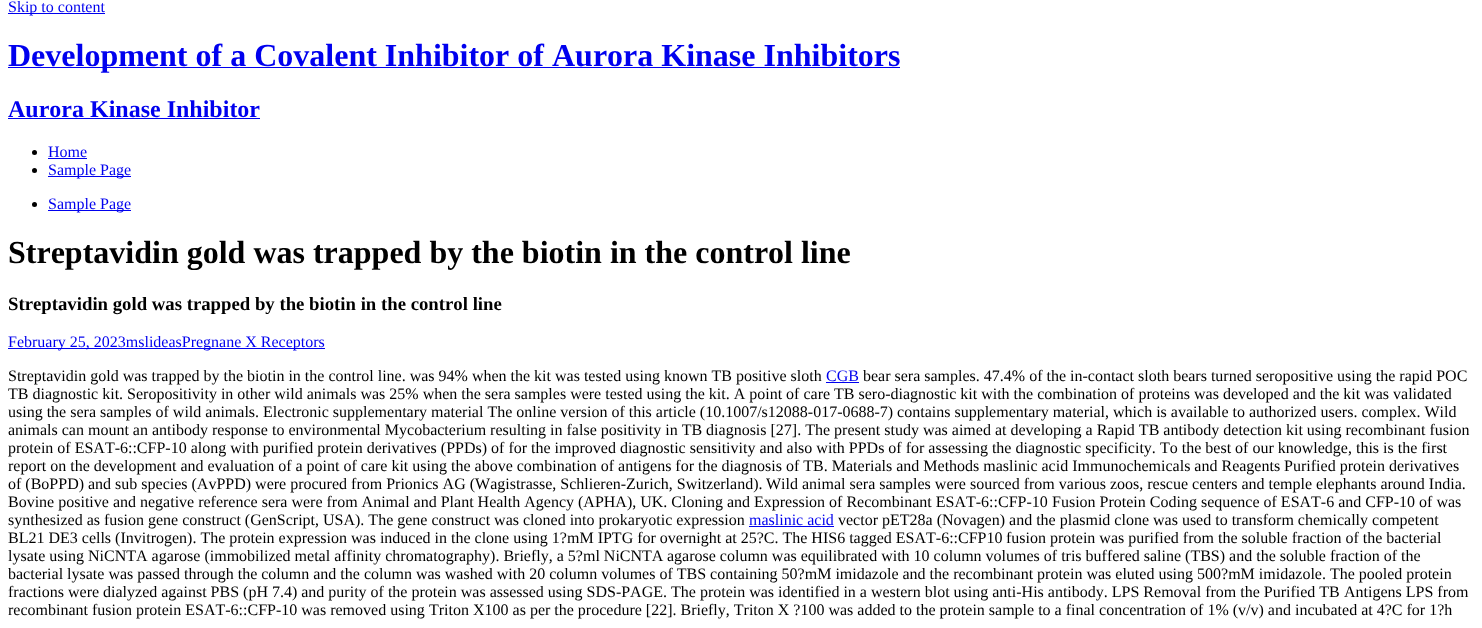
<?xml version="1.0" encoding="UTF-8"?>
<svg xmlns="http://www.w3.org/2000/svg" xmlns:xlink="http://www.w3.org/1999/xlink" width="1482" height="628">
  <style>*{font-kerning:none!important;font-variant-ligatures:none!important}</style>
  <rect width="100%" height="100%" fill="#ffffff" />
  <rect x="8" y="13" width="97" height="1" fill="#0000ee" />
  <rect x="8" y="67" width="892" height="1" fill="#0000ee" />
  <rect x="8" y="118" width="252" height="1" fill="#0000ee" />
  <circle cx="34.5" cy="152.5" r="2.5" fill="#000000" />
  <rect x="48" y="158" width="39" height="1" fill="#0000ee" />
  <circle cx="34.5" cy="170.5" r="2.5" fill="#000000" />
  <rect x="48" y="176" width="83" height="1" fill="#0000ee" />
  <circle cx="34.5" cy="204.5" r="2.5" fill="#000000" />
  <rect x="48" y="210" width="83" height="1" fill="#0000ee" />
  <rect x="8" y="348" width="317" height="1" fill="#0000ee" />
  <rect x="826" y="382" width="33" height="1" fill="#0000ee" />
  <rect x="749" y="526" width="85" height="1" fill="#0000ee" />
  <text x="8" y="12" style="font-family: Liberation Serif; font-size: 16px; fill: #0000ee">Skip to content</text>
  <text x="8" y="66" style="font-family: Liberation Serif; font-size: 32px; font-weight: bold; fill: #0000ee">Development of a Covalent Inhibitor of Aurora Kinase Inhibitors</text>
  <text x="8" y="117" style="font-family: Liberation Serif; font-size: 24px; font-weight: bold; fill: #0000ee">Aurora Kinase Inhibitor</text>
  <text x="48" y="157" style="font-family: Liberation Serif; font-size: 16px; fill: #0000ee">Home</text>
  <text x="48" y="175" style="font-family: Liberation Serif; font-size: 16px; fill: #0000ee">Sample Page</text>
  <text x="48" y="209" style="font-family: Liberation Serif; font-size: 16px; fill: #0000ee">Sample Page</text>
  <text x="8" y="263" style="font-family: Liberation Serif; font-size: 32px; font-weight: bold; fill: #000000">Streptavidin gold was trapped by the biotin in the control line</text>
  <text x="8" y="310" style="font-family: Liberation Serif; font-size: 18.75px; font-weight: bold; fill: #000000">Streptavidin gold was trapped by the biotin in the control line</text>
  <text x="8" y="347" style="font-family: Liberation Serif; font-size: 16px; fill: #0000ee">February 25, 2023mslideasPregnane X Receptors</text>
  <text x="8" y="381" style="font-family: Liberation Serif; font-size: 16px; fill: #000000">Streptavidin gold was trapped by the biotin in the control line. was 94% when the kit was tested using known TB positive sloth</text>
  <text x="826" y="381" style="font-family: Liberation Serif; font-size: 16px; fill: #0000ee">CGB</text>
  <text x="863" y="381" style="font-family: Liberation Serif; font-size: 16px; fill: #000000">bear sera samples. 47.4% of the in-contact sloth bears turned seropositive using the rapid POC</text>
  <text x="8" y="399" style="font-family: Liberation Serif; font-size: 16px; fill: #000000">TB diagnostic kit. Seropositivity in other wild animals was 25% when the sera samples were tested using the kit. A point of care TB sero-diagnostic kit with the combination of proteins was developed and the kit was validated</text>
  <text x="8" y="417" style="font-family: Liberation Serif; font-size: 16px; fill: #000000">using the sera samples of wild animals. Electronic supplementary material The online version of this article (10.1007/s12088-017-0688-7) contains supplementary material, which is available to authorized users. complex. Wild</text>
  <text x="8" y="435" style="font-family: Liberation Serif; font-size: 16px; fill: #000000">animals can mount an antibody response to environmental Mycobacterium resulting in false positivity in TB diagnosis [27]. The present study was aimed at developing a Rapid TB antibody detection kit using recombinant fusion</text>
  <text x="8" y="453" style="font-family: Liberation Serif; font-size: 16px; fill: #000000">protein of ESAT-6::CFP-10 along with purified protein derivatives (PPDs) of for the improved diagnostic sensitivity and also with PPDs of for assessing the diagnostic specificity.</text>
  <text x="1160" y="453" style="font-family: Liberation Serif; font-size: 16px; fill: #000000">To the best of our knowledge, this is the first</text>
  <text x="8" y="471" style="font-family: Liberation Serif; font-size: 16px; fill: #000000">report on the development and evaluation of a point of care kit using the above combination of antigens for the diagnosis of TB. Materials and Methods maslinic acid Immunochemicals and Reagents Purified protein derivatives</text>
  <text x="8" y="489" style="font-family: Liberation Serif; font-size: 16px; fill: #000000">of (BoPPD) and sub species (AvPPD) were procured from Prionics AG (Wagistrasse, Schlieren-Zurich, Switzerland).</text>
  <text x="766" y="489" style="font-family: Liberation Serif; font-size: 16px; fill: #000000">Wild animal sera samples were sourced from various zoos, rescue centers and temple elephants around India.</text>
  <text x="8" y="507" style="font-family: Liberation Serif; font-size: 16px; fill: #000000">Bovine positive and negative reference sera were from Animal and Plant Health Agency (APHA), UK. Cloning and Expression of Recombinant ESAT-6::CFP-10</text>
  <text x="1052" y="507" style="font-family: Liberation Serif; font-size: 16px; fill: #000000">Fusion Protein Coding sequence of ESAT-6 and CFP-10 of was</text>
  <text x="8" y="525" style="font-family: Liberation Serif; font-size: 16px; fill: #000000">synthesized as fusion gene construct (GenScript, USA). The gene construct was cloned into prokaryotic expression</text>
  <text x="749" y="525" style="font-family: Liberation Serif; font-size: 16px; fill: #0000ee">maslinic acid</text>
  <text x="838" y="525" style="font-family: Liberation Serif; font-size: 16px; fill: #000000">vector pET28a (Novagen) and the plasmid clone was used to transform chemically competent</text>
  <text x="8" y="543" style="font-family: Liberation Serif; font-size: 16px; fill: #000000">BL21 DE3 cells (Invitrogen). The protein expression was induced in the clone using 1?mM IPTG for overnight at 25?C. The HIS6 tagged ESAT-6::CFP10</text>
  <text x="1006" y="543" style="font-family: Liberation Serif; font-size: 16px; fill: #000000">fusion protein was purified from the soluble fraction of the bacterial</text>
  <text x="8" y="561" style="font-family: Liberation Serif; font-size: 16px; fill: #000000">lysate using NiCNTA agarose (immobilized metal affinity chromatography). Briefly, a 5?ml NiCNTA</text>
  <text x="667" y="561" style="font-family: Liberation Serif; font-size: 16px; fill: #000000">agarose column was equilibrated with 10 column volumes of tris buffered saline (TBS) and the soluble fraction of the</text>
  <text x="8" y="579" style="font-family: Liberation Serif; font-size: 16px; fill: #000000">bacterial lysate was passed through the column and the column was washed with 20 column volumes of TBS containing 50?mM imidazole and the recombinant protein was eluted using 500?mM imidazole. The pooled protein</text>
  <text x="8" y="597" style="font-family: Liberation Serif; font-size: 16px; fill: #000000">fractions were dialyzed against PBS (pH 7.4) and purity of the protein was assessed using SDS-PAGE. The protein was identified in a western blot using anti-His antibody. LPS Removal from the Purified TB</text>
  <text x="1344" y="597" style="font-family: Liberation Serif; font-size: 16px; fill: #000000">Antigens LPS from</text>
  <text x="8" y="615" style="font-family: Liberation Serif; font-size: 16px; fill: #000000">recombinant fusion protein ESAT-6::CFP-10 was removed using</text>
  <text x="429" y="615" style="font-family: Liberation Serif; font-size: 16px; fill: #000000">Triton X100 as per the procedure [22]. Briefly, Triton X ?100 was added to the protein sample to a final concentration of 1% (v/v) and incubated at 4?C for 1?h</text>
</svg>
